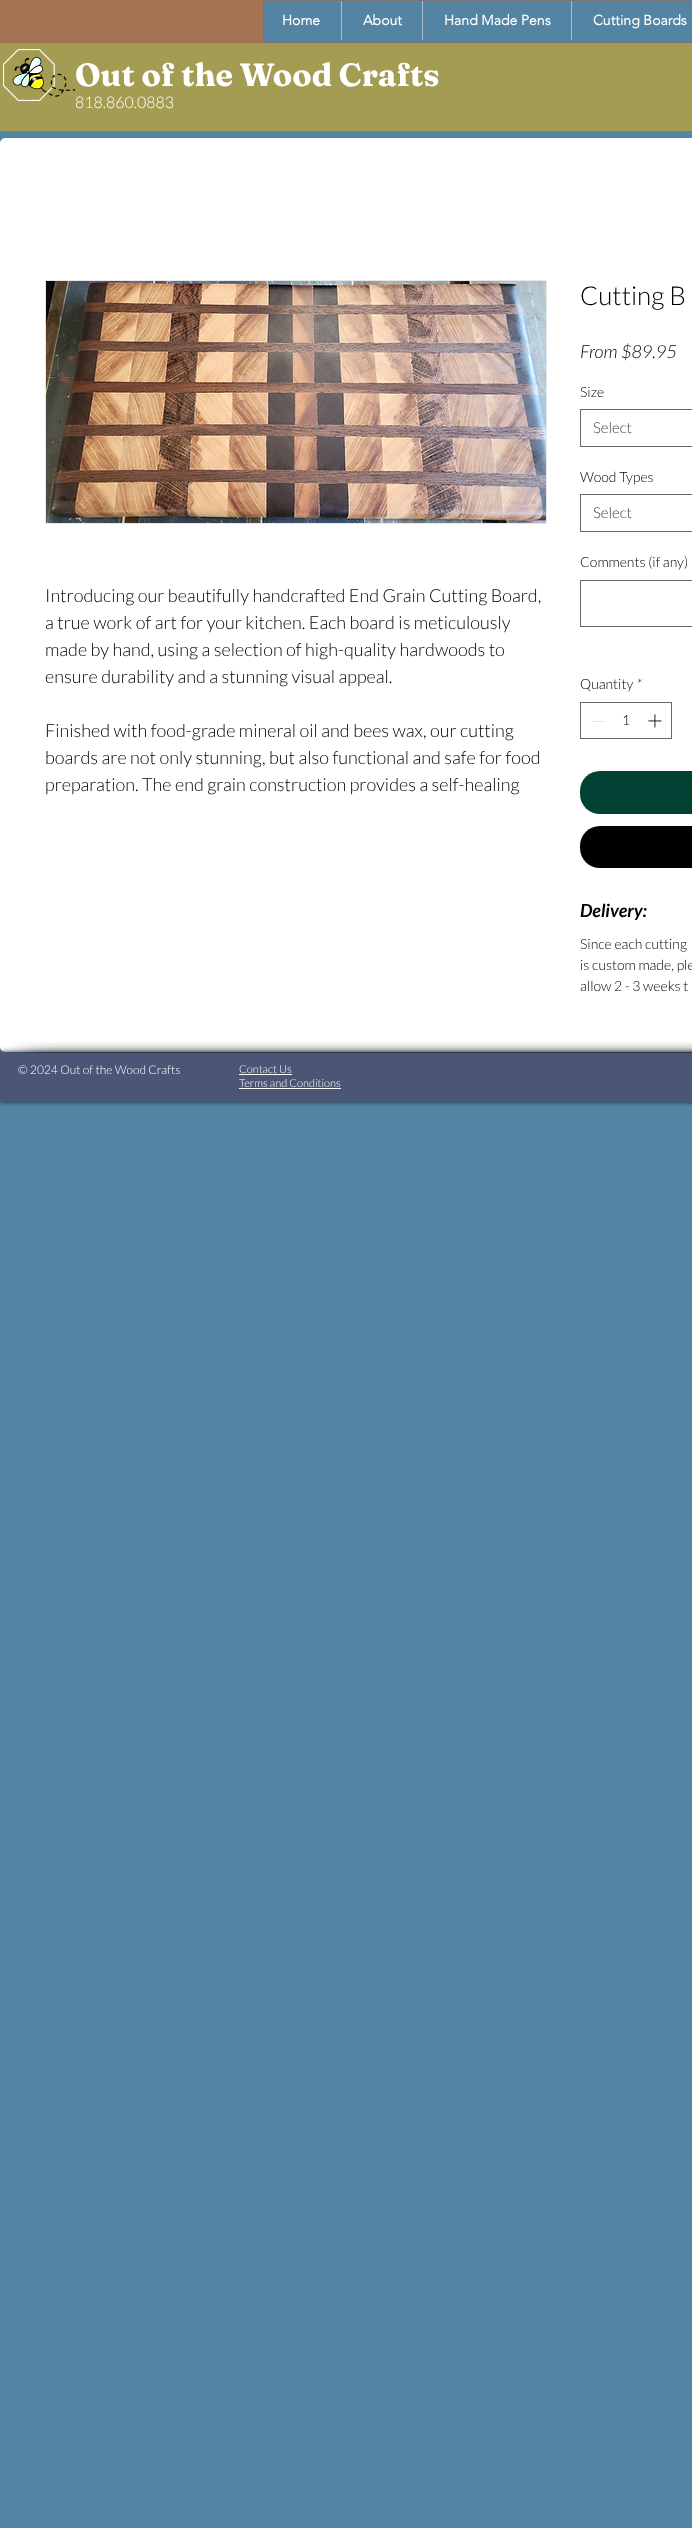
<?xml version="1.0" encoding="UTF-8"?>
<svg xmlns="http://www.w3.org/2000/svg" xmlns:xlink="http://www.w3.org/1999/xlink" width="692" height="2528">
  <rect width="100%" height="100%" fill="#5384a4" />
  <rect width="263" height="43" fill="#a47353" />
  <rect x="263.5" y="0.5" width="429" height="42" fill="none" stroke="#757575" />
  <rect x="341" y="1" width="1" height="39" fill="#a6bfd0" />
  <rect x="422" y="1" width="1" height="39" fill="#a6bfd0" />
  <rect x="571" y="1" width="1" height="39" fill="#a6bfd0" />
  <rect y="43" width="692" height="88" fill="#a49c53" />
  <image x="3" y="49" width="72" height="52" xlink:href="image1.png" />
  <rect x="0.5" y="138.5" width="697" height="913" rx="4.5" fill="#ffffff" stroke="#ffffff" />
  <rect x="45.5" y="280.5" width="501" height="243" fill="none" stroke="#e8e6e6" />
  <image x="46" y="281" width="500" height="242" xlink:href="image2.png" />
  <rect x="580.5" y="409.5" width="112" height="37" fill="none" stroke="#666666" />
  <rect x="580.5" y="494.5" width="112" height="37" fill="none" stroke="#666666" />
  <rect x="580.5" y="580.5" width="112" height="46" fill="none" stroke="#666666" />
  <rect x="580.5" y="702.5" width="91" height="36" fill="none" stroke="#666666" />
  <rect x="592" y="721" width="13" height="1" fill="#e3e3e3" />
  <image x="648" y="714" width="14" height="14" xlink:href="image3.png" />
  <rect x="580" y="771" width="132" height="43" rx="20" fill="#014235" />
  <rect x="580" y="826" width="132" height="42" rx="20" fill="#000000" />
  <rect y="1052" width="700" height="50" fill="#000000" fill-opacity="0.7" filter="blur(2.5px)" />
  <rect y="1052" width="692" height="50" fill="#4b5676" />
  <image x="4" y="1042" width="96" height="11" xlink:href="image4.png" />
  <image x="100" y="1042" width="592" height="11" xlink:href="image5.png" />
  <rect x="239" y="1074" width="53" height="1" fill="#ffffff" />
  <rect x="239" y="1088" width="102" height="1" fill="#ffffff" />
  <text x="282" y="25" style="font-family: 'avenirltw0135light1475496'; font-size: 14px; font-weight: bold; fill: #ffffff">Home</text>
  <text x="363" y="25" style="font-family: 'avenirltw0135light1475496'; font-size: 14px; font-weight: bold; fill: #ffffff">About</text>
  <text x="444" y="25" style="font-family: 'avenirltw0135light1475496'; font-size: 14px; font-weight: bold; fill: #ffffff">Hand Made Pens</text>
  <text x="593" y="25" style="font-family: 'avenirltw0135light1475496'; font-size: 14px; font-weight: bold; fill: #ffffff">Cutting Boards</text>
  <text x="75" y="86" style="font-family: Fraunces; font-size: 32px; font-weight: bold; fill: #ffffff">Out of the Wood Crafts</text>
  <text x="75" y="108" style="font-family: Lato; font-size: 16px; font-weight: 300; fill: #ffffff">818.860.0883</text>
  <text x="45" y="602" style="font-family: Lato; font-size: 18px; font-weight: 300; fill: #000000">Introducing our beautifully handcrafted End Grain Cutting Board,</text>
  <text x="45" y="629" style="font-family: Lato; font-size: 18px; font-weight: 300; fill: #000000">a true work of art for your kitchen. Each board is meticulously</text>
  <text x="45" y="656" style="font-family: Lato; font-size: 18px; font-weight: 300; fill: #000000">made by hand, using a selection of high-quality hardwoods to</text>
  <text x="45" y="683" style="font-family: Lato; font-size: 18px; font-weight: 300; fill: #000000">ensure durability and a stunning visual appeal.</text>
  <text x="45" y="737" style="font-family: Lato; font-size: 18px; font-weight: 300; fill: #000000">Finished with food-grade mineral oil and bees wax, our cutting</text>
  <text x="45" y="764" style="font-family: Lato; font-size: 18px; font-weight: 300; fill: #000000">boards are not only stunning, but also functional and safe for food</text>
  <text x="45" y="791" style="font-family: Lato; font-size: 18px; font-weight: 300; fill: #000000">preparation. The end grain construction provides a self-healing</text>
  <text x="580" y="305" style="font-family: Lato; font-size: 26px; font-weight: 300; fill: #000000">Cutting B</text>
  <text x="580" y="358" style="font-family: Lato; font-size: 18px; font-weight: 300; font-style: italic; fill: #000000">From $89.95</text>
  <text x="580" y="397" style="font-family: Lato; font-size: 14px; font-weight: 300; fill: #000000">Size</text>
  <text x="593" y="433" style="font-family: Lato; font-size: 15px; font-weight: 300; fill: #444444">Select</text>
  <text x="580" y="482" style="font-family: Lato; font-size: 14px; font-weight: 300; fill: #000000">Wood Types</text>
  <text x="593" y="518" style="font-family: Lato; font-size: 15px; font-weight: 300; fill: #444444">Select</text>
  <text x="580" y="567" style="font-family: Lato; font-size: 14px; font-weight: 300; fill: #000000">Comments (if any)</text>
  <text x="580" y="689" style="font-family: Lato; font-size: 14px; font-weight: 300; fill: #000000">Quantity</text>
  <text x="637" y="689" style="font-family: Lato; font-size: 14px; font-weight: 300; fill: #000000">*</text>
  <text x="622" y="725" style="font-family: Lato; font-size: 14px; font-weight: 300; fill: #000000">1</text>
  <text x="580" y="917" style="font-family: Lato; font-size: 18px; font-weight: bold; font-style: italic; fill: #000000">Delivery:</text>
  <text x="580" y="949" style="font-family: Lato; font-size: 14px; font-weight: 300; fill: #000000">Since each cutting</text>
  <text x="580" y="970" style="font-family: Lato; font-size: 14px; font-weight: 300; fill: #000000">is custom made, ple</text>
  <text x="580" y="991" style="font-family: Lato; font-size: 14px; font-weight: 300; fill: #000000">allow 2 - 3 weeks t</text>
  <text x="18" y="1074" style="font-family: Lato; font-size: 12px; font-weight: 300; fill: #ffffff">© 2024 Out of the Wood Crafts</text>
  <text x="239" y="1073" style="font-family: Lato; font-size: 11px; font-weight: 300; fill: #ffffff">Contact Us</text>
  <text x="239" y="1087" style="font-family: Lato; font-size: 11px; font-weight: 300; fill: #ffffff">Terms and Conditions</text>
</svg>
